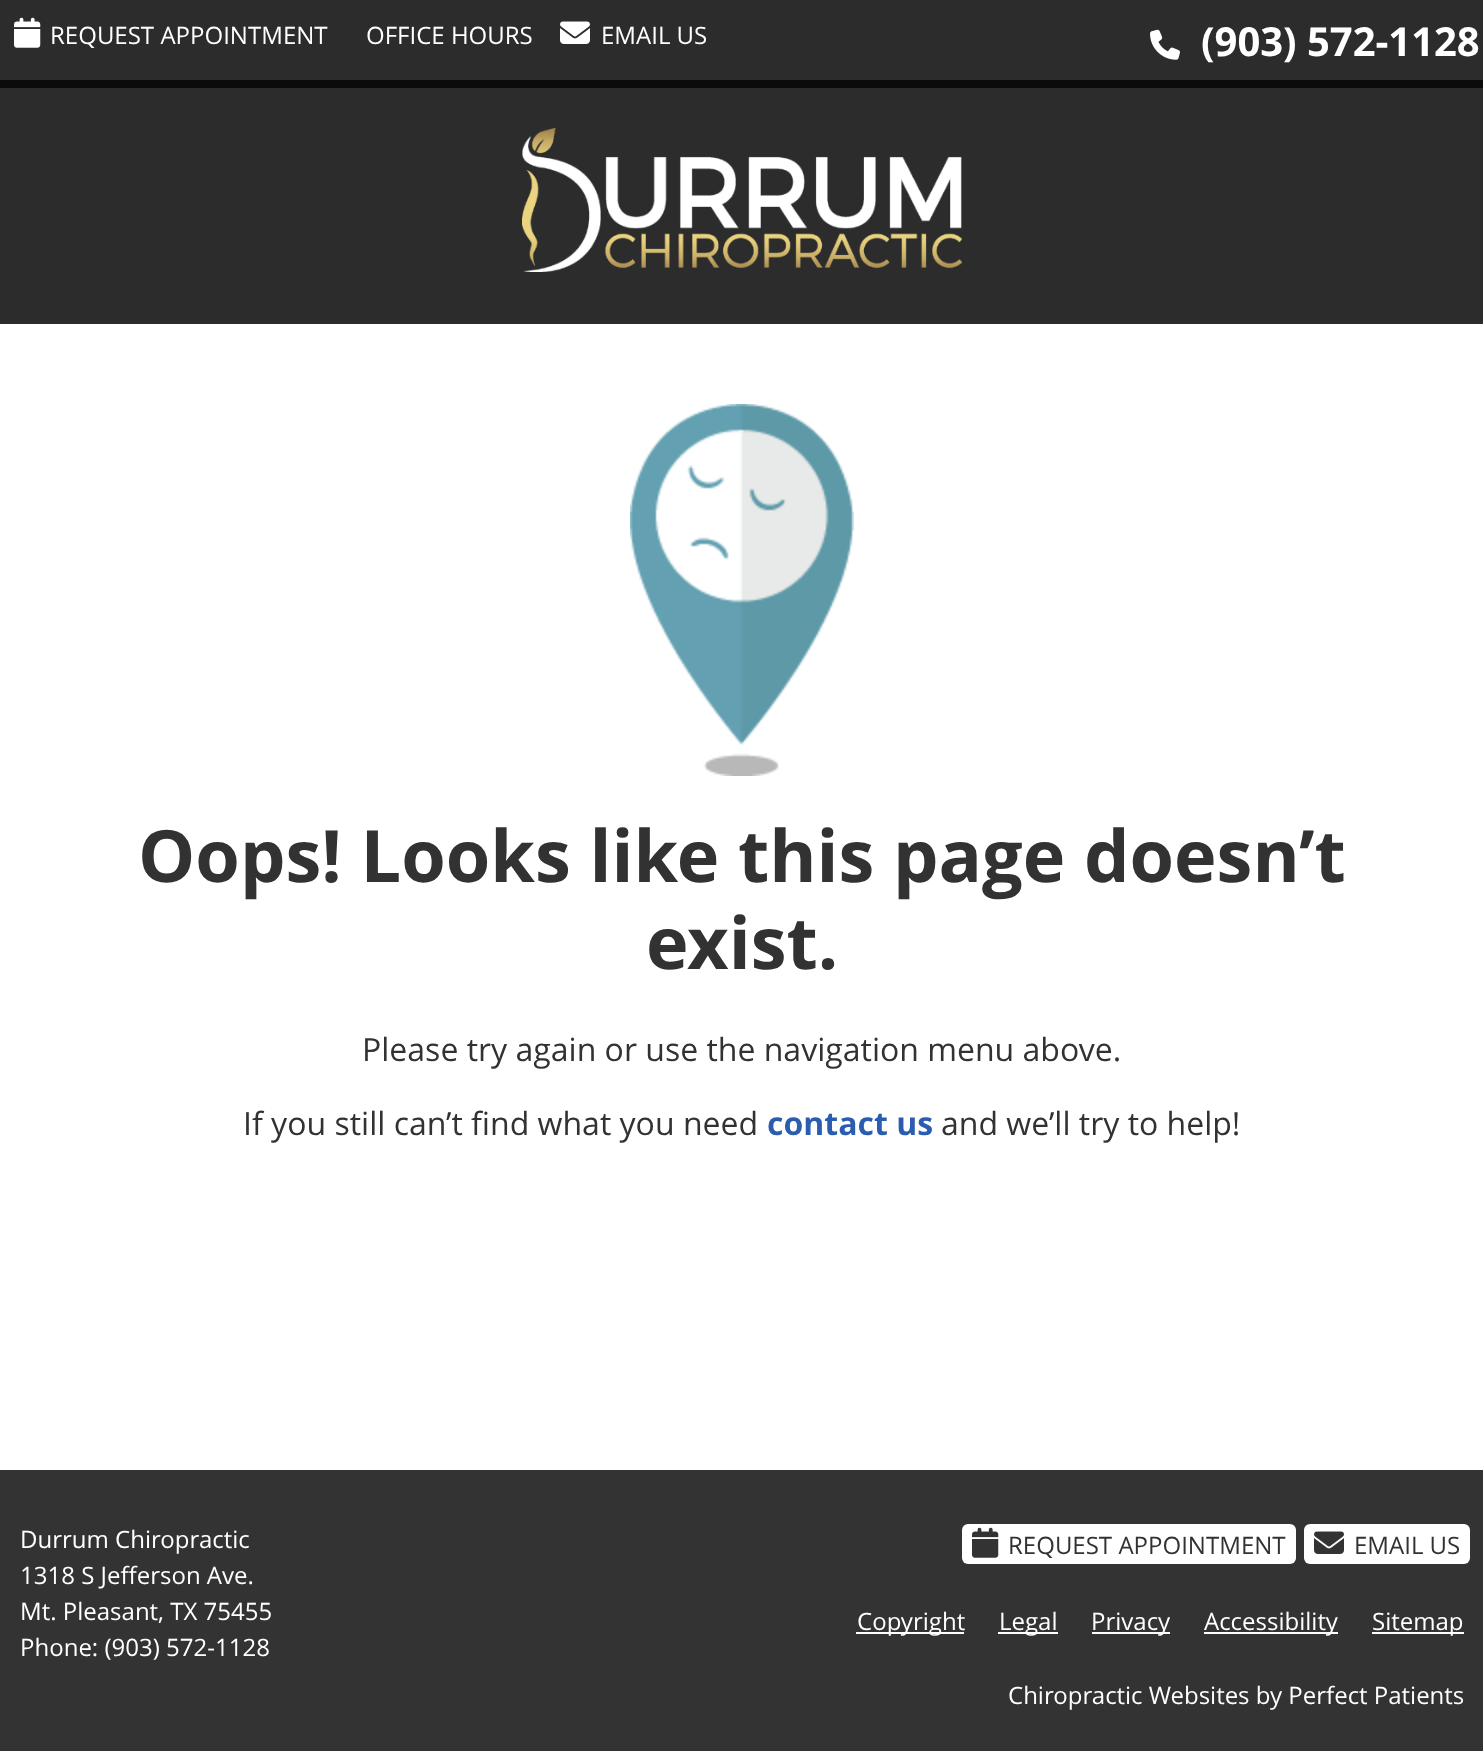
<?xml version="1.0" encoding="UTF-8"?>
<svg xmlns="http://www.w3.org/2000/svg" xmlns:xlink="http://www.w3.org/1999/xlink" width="1483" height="1751">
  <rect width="100%" height="100%" fill="#ffffff" />
  <rect width="1483" height="80" fill="#2c2c2c" />
  <image x="14" y="17" width="27" height="31" xlink:href="image1.png" />
  <image x="560" y="21" width="30" height="23" xlink:href="image2.png" />
  <image x="1150" y="29" width="30" height="31" xlink:href="image3.png" />
  <rect y="80" width="1483" height="8" fill="#0b0b0b" />
  <rect y="88" width="1483" height="236" fill="#2c2c2c" />
  <image x="522" y="128" width="440" height="144" xlink:href="image4.png" />
  <image x="630" y="404" width="224" height="372" xlink:href="image5.png" />
  <rect y="1470" width="1483" height="281" fill="#333333" />
  <rect x="962" y="1524" width="334" height="40" rx="6" fill="#ffffff" />
  <image x="972" y="1527" width="27" height="31" xlink:href="image6.png" />
  <rect x="1304" y="1524" width="166" height="40" rx="6" fill="#ffffff" />
  <image x="1314" y="1531" width="30" height="23" xlink:href="image7.png" />
  <rect x="856" y="1632" width="108" height="2" fill="#ffffff" />
  <rect x="998" y="1632" width="60" height="2" fill="#ffffff" />
  <rect x="1092" y="1632" width="78" height="2" fill="#ffffff" />
  <rect x="1204" y="1632" width="134" height="2" fill="#ffffff" />
  <rect x="1372" y="1632" width="92" height="2" fill="#ffffff" />
  <text x="50" y="44" style="font-family: Open Sans; font-size: 24px; fill: #ffffff">REQUEST APPOINTMENT</text>
  <text x="366" y="44" style="font-family: Open Sans; font-size: 24px; fill: #ffffff">OFFICE HOURS</text>
  <text x="601" y="44" style="font-family: Open Sans; font-size: 24px; fill: #ffffff">EMAIL US</text>
  <text x="1201" y="56" style="font-family: Open Sans; font-size: 40px; font-weight: bold; fill: #ffffff">(903) 572-1128</text>
  <text x="138" y="882" style="font-family: Open Sans; font-size: 72px; font-weight: bold; fill: #323232">Oops! Looks like this page doesn’t</text>
  <text x="646" y="969" style="font-family: Open Sans; font-size: 72px; font-weight: bold; fill: #323232">exist.</text>
  <text x="362" y="1061" style="font-family: Open Sans; font-size: 32px; fill: #323232">Please try again or use the navigation menu above.</text>
  <text x="243" y="1135" style="font-family: Open Sans; font-size: 32px; fill: #323232">If you still can’t find what you need</text>
  <text x="767" y="1135" style="font-family: Open Sans; font-size: 32px; font-weight: bold; fill: #2a5db0">contact us</text>
  <text x="941" y="1135" style="font-family: Open Sans; font-size: 32px; fill: #323232">and we’ll try to help!</text>
  <text x="20" y="1548" style="font-family: Open Sans; font-size: 24px; fill: #ffffff">Durrum Chiropractic</text>
  <text x="20" y="1584" style="font-family: Open Sans; font-size: 24px; fill: #ffffff">1318 S Jefferson Ave.</text>
  <text x="20" y="1620" style="font-family: Open Sans; font-size: 24px; fill: #ffffff">Mt. Pleasant, TX 75455</text>
  <text x="20" y="1656" style="font-family: Open Sans; font-size: 24px; fill: #ffffff">Phone: (903) 572-1128</text>
  <text x="1008" y="1554" style="font-family: Open Sans; font-size: 24px; fill: #323232">REQUEST APPOINTMENT</text>
  <text x="1354" y="1554" style="font-family: Open Sans; font-size: 24px; fill: #323232">EMAIL US</text>
  <text x="857" y="1630" style="font-family: Open Sans; font-size: 24px; fill: #ffffff">Copyright</text>
  <text x="999" y="1630" style="font-family: Open Sans; font-size: 24px; fill: #ffffff">Legal</text>
  <text x="1091" y="1630" style="font-family: Open Sans; font-size: 24px; fill: #ffffff">Privacy</text>
  <text x="1204" y="1630" style="font-family: Open Sans; font-size: 24px; fill: #ffffff">Accessibility</text>
  <text x="1372" y="1630" style="font-family: Open Sans; font-size: 24px; fill: #ffffff">Sitemap</text>
  <text x="1008" y="1704" style="font-family: Open Sans; font-size: 24px; fill: #ffffff">Chiropractic Websites by Perfect Patients</text>
</svg>
